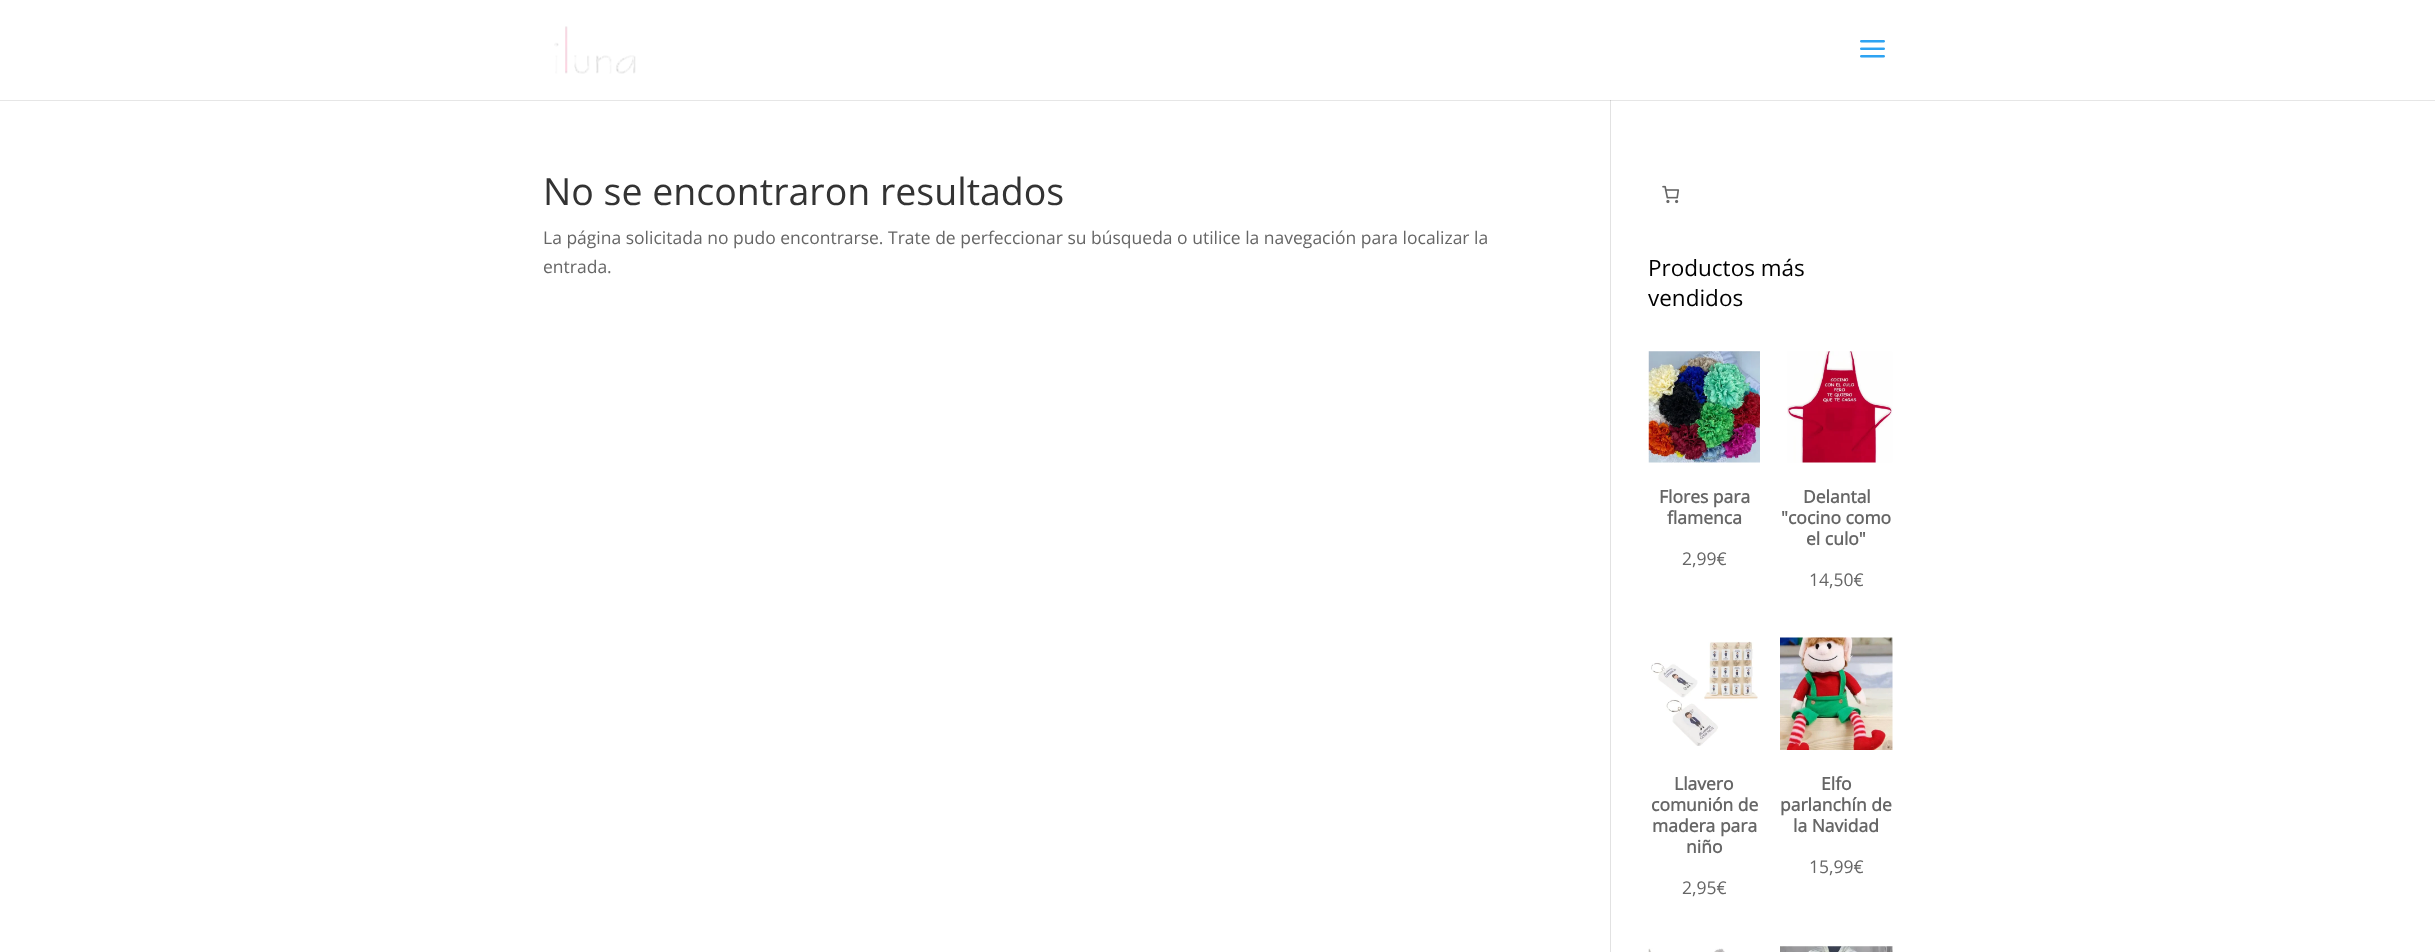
<?xml version="1.0" encoding="UTF-8"?>
<svg xmlns="http://www.w3.org/2000/svg" xmlns:xlink="http://www.w3.org/1999/xlink" width="2435" height="952">
  <rect width="100%" height="100%" fill="#ffffff" />
  <image x="554" y="26" width="82" height="48" xlink:href="image1.png" />
  <image x="1860" y="40" width="25" height="18" xlink:href="image2.png" />
  <rect y="100" width="2435" height="1" fill="#e6e6e6" />
  <rect x="1610" y="100" width="1" height="852" fill="#e2e2e2" />
  <rect x="1610" y="100" width="1" height="1" fill="#cbcbcb" />
  <image x="1662" y="185" width="18" height="19" xlink:href="image3.png" />
  <image x="1648" y="351" width="112" height="112" xlink:href="image4.png" />
  <image x="1787" y="351" width="106" height="112" xlink:href="image5.png" />
  <image x="1651" y="641" width="107" height="105" xlink:href="image6.png" />
  <image x="1780" y="637" width="113" height="113" xlink:href="image7.png" />
  <image x="1648" y="948" width="77" height="4" xlink:href="image8.png" />
  <image x="1780" y="946" width="113" height="6" xlink:href="image9.png" />
  <text x="543" y="205" style="font-family: Open Sans; font-size: 37.5px; fill: #333333">No se encontraron resultados</text>
  <text x="543" y="244" style="font-family: Open Sans; font-size: 17.5px; fill: #666666">La página solicitada no pudo encontrarse. Trate de perfeccionar su búsqueda o utilice la navegación para localizar la</text>
  <text x="543" y="273" style="font-family: Open Sans; font-size: 17.5px; fill: #666666">entrada.</text>
  <text x="1648" y="276" style="font-family: Open Sans; font-size: 22.5px; fill: #000000">Productos más</text>
  <text x="1648" y="306" style="font-family: Open Sans; font-size: 22.5px; fill: #000000">vendidos</text>
  <text x="1659" y="503" style="font-family: Open Sans; font-size: 17.5px; font-weight: bold; fill: #666666">Flores para</text>
  <text x="1667" y="524" style="font-family: Open Sans; font-size: 17.5px; font-weight: bold; fill: #666666">flamenca</text>
  <text x="1682" y="565" style="font-family: Open Sans; font-size: 17.5px; fill: #666666">2,99€</text>
  <text x="1803" y="503" style="font-family: Open Sans; font-size: 17.5px; font-weight: bold; fill: #666666">Delantal</text>
  <text x="1781" y="524" style="font-family: Open Sans; font-size: 17.5px; font-weight: bold; fill: #666666">"cocino como</text>
  <text x="1806" y="545" style="font-family: Open Sans; font-size: 17.5px; font-weight: bold; fill: #666666">el culo"</text>
  <text x="1809" y="586" style="font-family: Open Sans; font-size: 17.5px; fill: #666666">14,50€</text>
  <text x="1674" y="790" style="font-family: Open Sans; font-size: 17.5px; font-weight: bold; fill: #666666">Llavero</text>
  <text x="1651" y="811" style="font-family: Open Sans; font-size: 17.5px; font-weight: bold; fill: #666666">comunión de</text>
  <text x="1652" y="832" style="font-family: Open Sans; font-size: 17.5px; font-weight: bold; fill: #666666">madera para</text>
  <text x="1686" y="853" style="font-family: Open Sans; font-size: 17.5px; font-weight: bold; fill: #666666">niño</text>
  <text x="1682" y="894" style="font-family: Open Sans; font-size: 17.5px; fill: #666666">2,95€</text>
  <text x="1821" y="790" style="font-family: Open Sans; font-size: 17.5px; font-weight: bold; fill: #666666">Elfo</text>
  <text x="1780" y="811" style="font-family: Open Sans; font-size: 17.5px; font-weight: bold; fill: #666666">parlanchín de</text>
  <text x="1793" y="832" style="font-family: Open Sans; font-size: 17.5px; font-weight: bold; fill: #666666">la Navidad</text>
  <text x="1809" y="873" style="font-family: Open Sans; font-size: 17.5px; fill: #666666">15,99€</text>
</svg>
